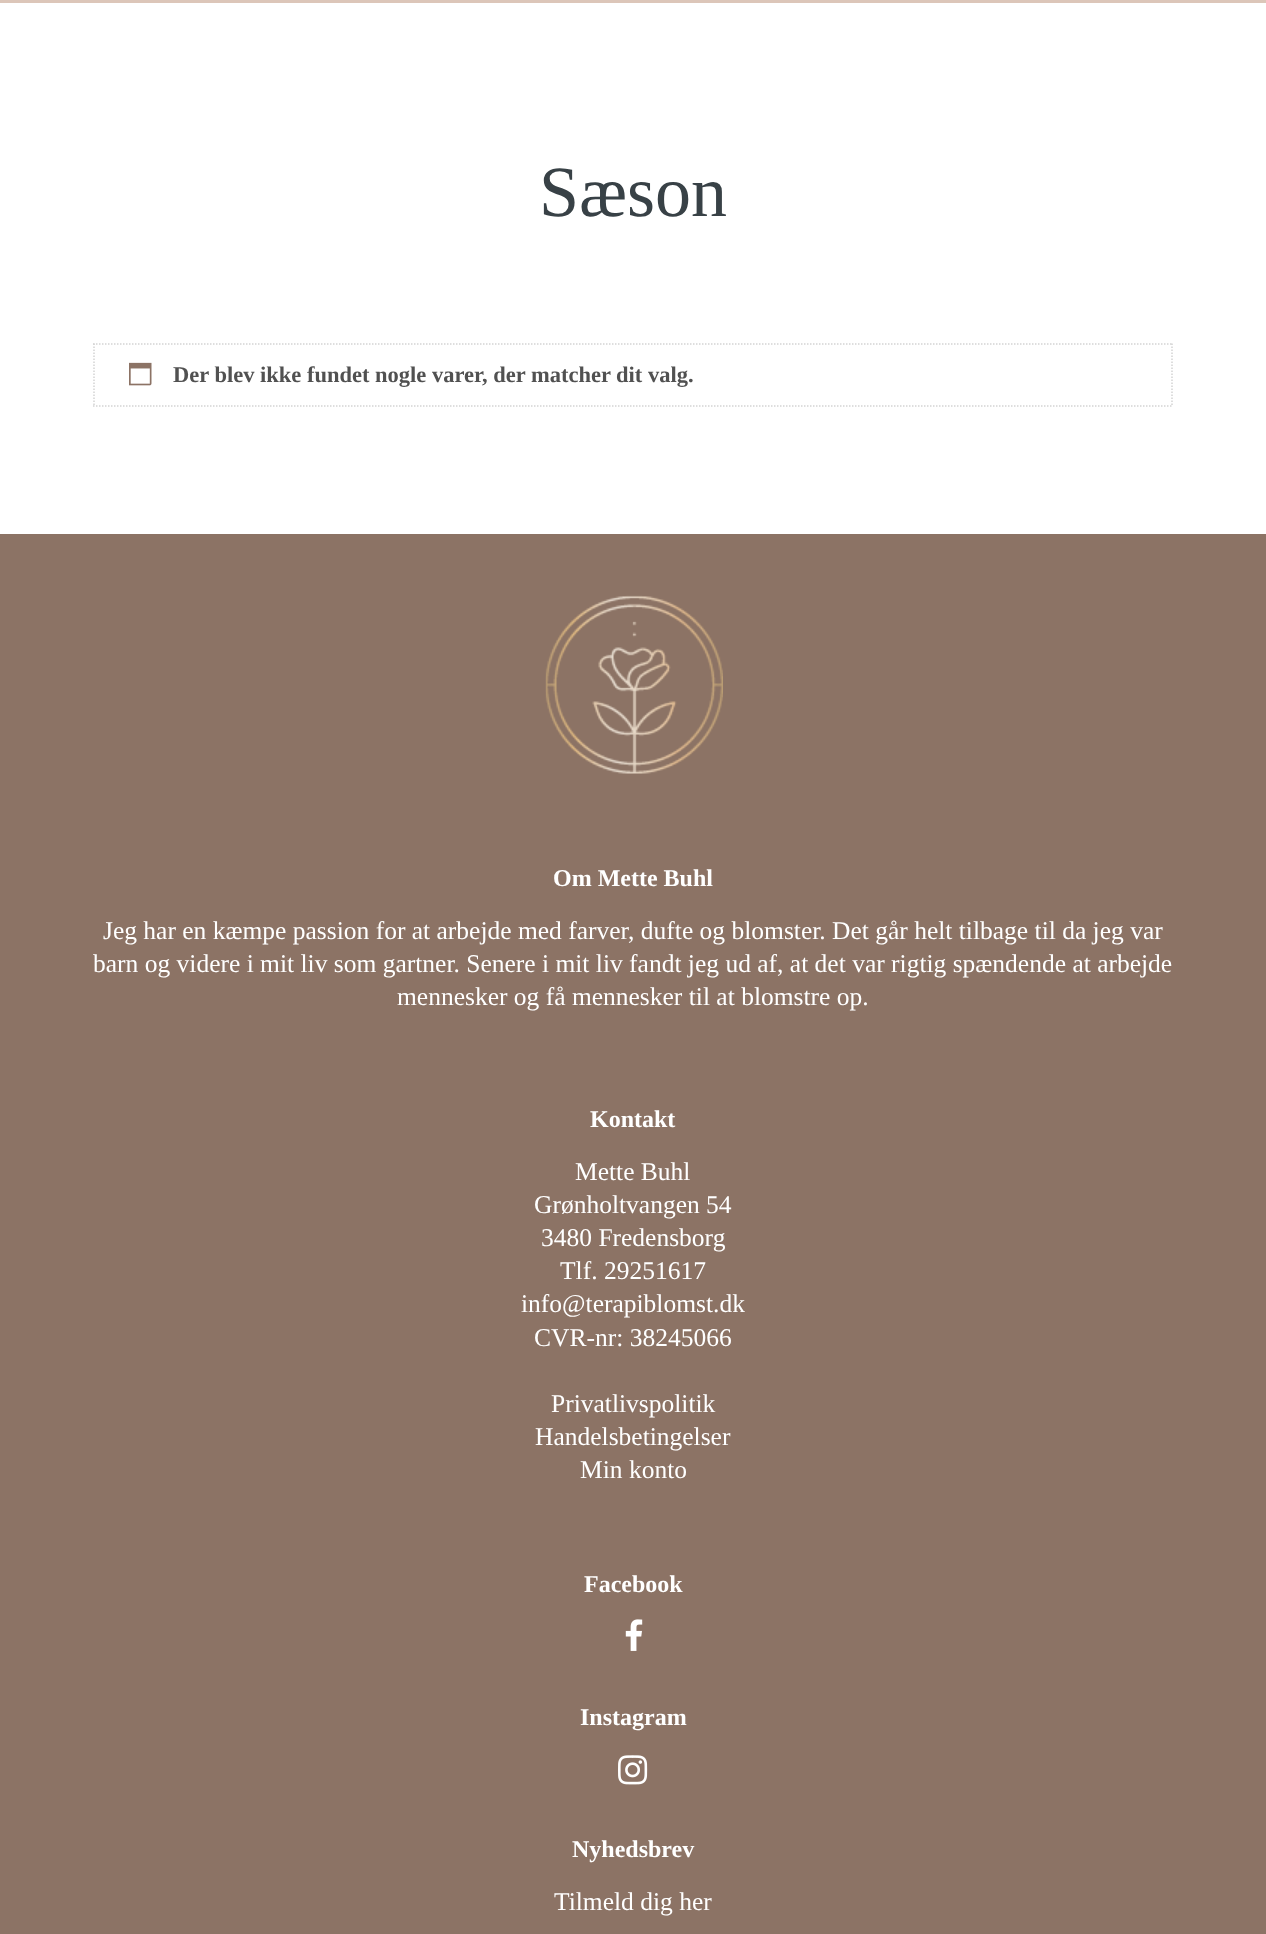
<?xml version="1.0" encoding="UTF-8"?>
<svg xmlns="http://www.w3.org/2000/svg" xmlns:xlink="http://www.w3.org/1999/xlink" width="1266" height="1934">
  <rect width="100%" height="100%" fill="#ffffff" />
  <rect width="1266" height="3" fill="#dcc6b9" />
  <path d="M 93 344 h 1080" fill="none" stroke="#d4d4d4" stroke-width="1.5" stroke-dasharray="1.5 1.5" />
  <path d="M 1172 343.5 v 63" fill="none" stroke="#d4d4d4" stroke-width="1.5" stroke-dasharray="1.5 1.5" />
  <path d="M 93 406 h 1080" fill="none" stroke="#d4d4d4" stroke-width="1.5" stroke-dasharray="1.5 1.5" />
  <path d="M 94 343.5 v 63" fill="none" stroke="#d4d4d4" stroke-width="1.5" stroke-dasharray="1.5 1.5" />
  <image x="129" y="362" width="23" height="24" xlink:href="image1.png" />
  <rect y="534" width="1266" height="1400" fill="#8c7365" />
  <image x="545" y="595" width="178" height="179" xlink:href="image2.png" />
  <image x="625" y="1619" width="18" height="32" xlink:href="image3.png" />
  <image x="618" y="1755" width="30" height="30" xlink:href="image4.png" />
  <text x="539" y="216" style="font-family: Liberation Serif; font-size: 72px; fill: #384146">Sæson</text>
  <text x="173" y="382" style="font-family: Liberation Serif; font-size: 22.5px; font-weight: bold; fill: #515151">Der blev ikke fundet nogle varer, der matcher dit valg.</text>
  <text x="553" y="886" style="font-family: Liberation Serif; font-size: 24px; font-weight: bold; fill: #ffffff">Om Mette Buhl</text>
  <text x="103" y="939" style="font-family: Liberation Serif; font-size: 25.5px; fill: #ffffff">Jeg har en kæmpe passion for at arbejde med farver, dufte og blomster. Det går helt tilbage til da jeg var</text>
  <text x="93" y="972" style="font-family: Liberation Serif; font-size: 25.5px; fill: #ffffff">barn og videre i mit liv som gartner. Senere i mit liv fandt jeg ud af, at det var rigtig spændende at arbejde</text>
  <text x="397" y="1005" style="font-family: Liberation Serif; font-size: 25.5px; fill: #ffffff">mennesker og få mennesker til at blomstre op.</text>
  <text x="590" y="1127" style="font-family: Liberation Serif; font-size: 24px; font-weight: bold; fill: #ffffff">Kontakt</text>
  <text x="575" y="1180" style="font-family: Liberation Serif; font-size: 25.5px; fill: #ffffff">Mette Buhl</text>
  <text x="534" y="1213" style="font-family: Liberation Serif; font-size: 25.5px; fill: #ffffff">Grønholtvangen 54</text>
  <text x="541" y="1246" style="font-family: Liberation Serif; font-size: 25.5px; fill: #ffffff">3480 Fredensborg</text>
  <text x="560" y="1279" style="font-family: Liberation Serif; font-size: 25.5px; fill: #ffffff">Tlf. 29251617</text>
  <text x="521" y="1312" style="font-family: Liberation Serif; font-size: 25.5px; fill: #ffffff">info@terapiblomst.dk</text>
  <text x="534" y="1346" style="font-family: Liberation Serif; font-size: 25.5px; fill: #ffffff">CVR-nr: 38245066</text>
  <text x="551" y="1412" style="font-family: Liberation Serif; font-size: 25.5px; fill: #ffffff">Privatlivspolitik</text>
  <text x="535" y="1445" style="font-family: Liberation Serif; font-size: 25.5px; fill: #ffffff">Handelsbetingelser</text>
  <text x="580" y="1478" style="font-family: Liberation Serif; font-size: 25.5px; fill: #ffffff">Min konto</text>
  <text x="584" y="1592" style="font-family: Liberation Serif; font-size: 24px; font-weight: bold; fill: #ffffff">Facebook</text>
  <text x="580" y="1725" style="font-family: Liberation Serif; font-size: 24px; font-weight: bold; fill: #ffffff">Instagram</text>
  <text x="572" y="1857" style="font-family: Liberation Serif; font-size: 24px; font-weight: bold; fill: #ffffff">Nyhedsbrev</text>
  <text x="554" y="1910" style="font-family: Liberation Serif; font-size: 25.5px; fill: #ffffff">Tilmeld dig her</text>
</svg>
